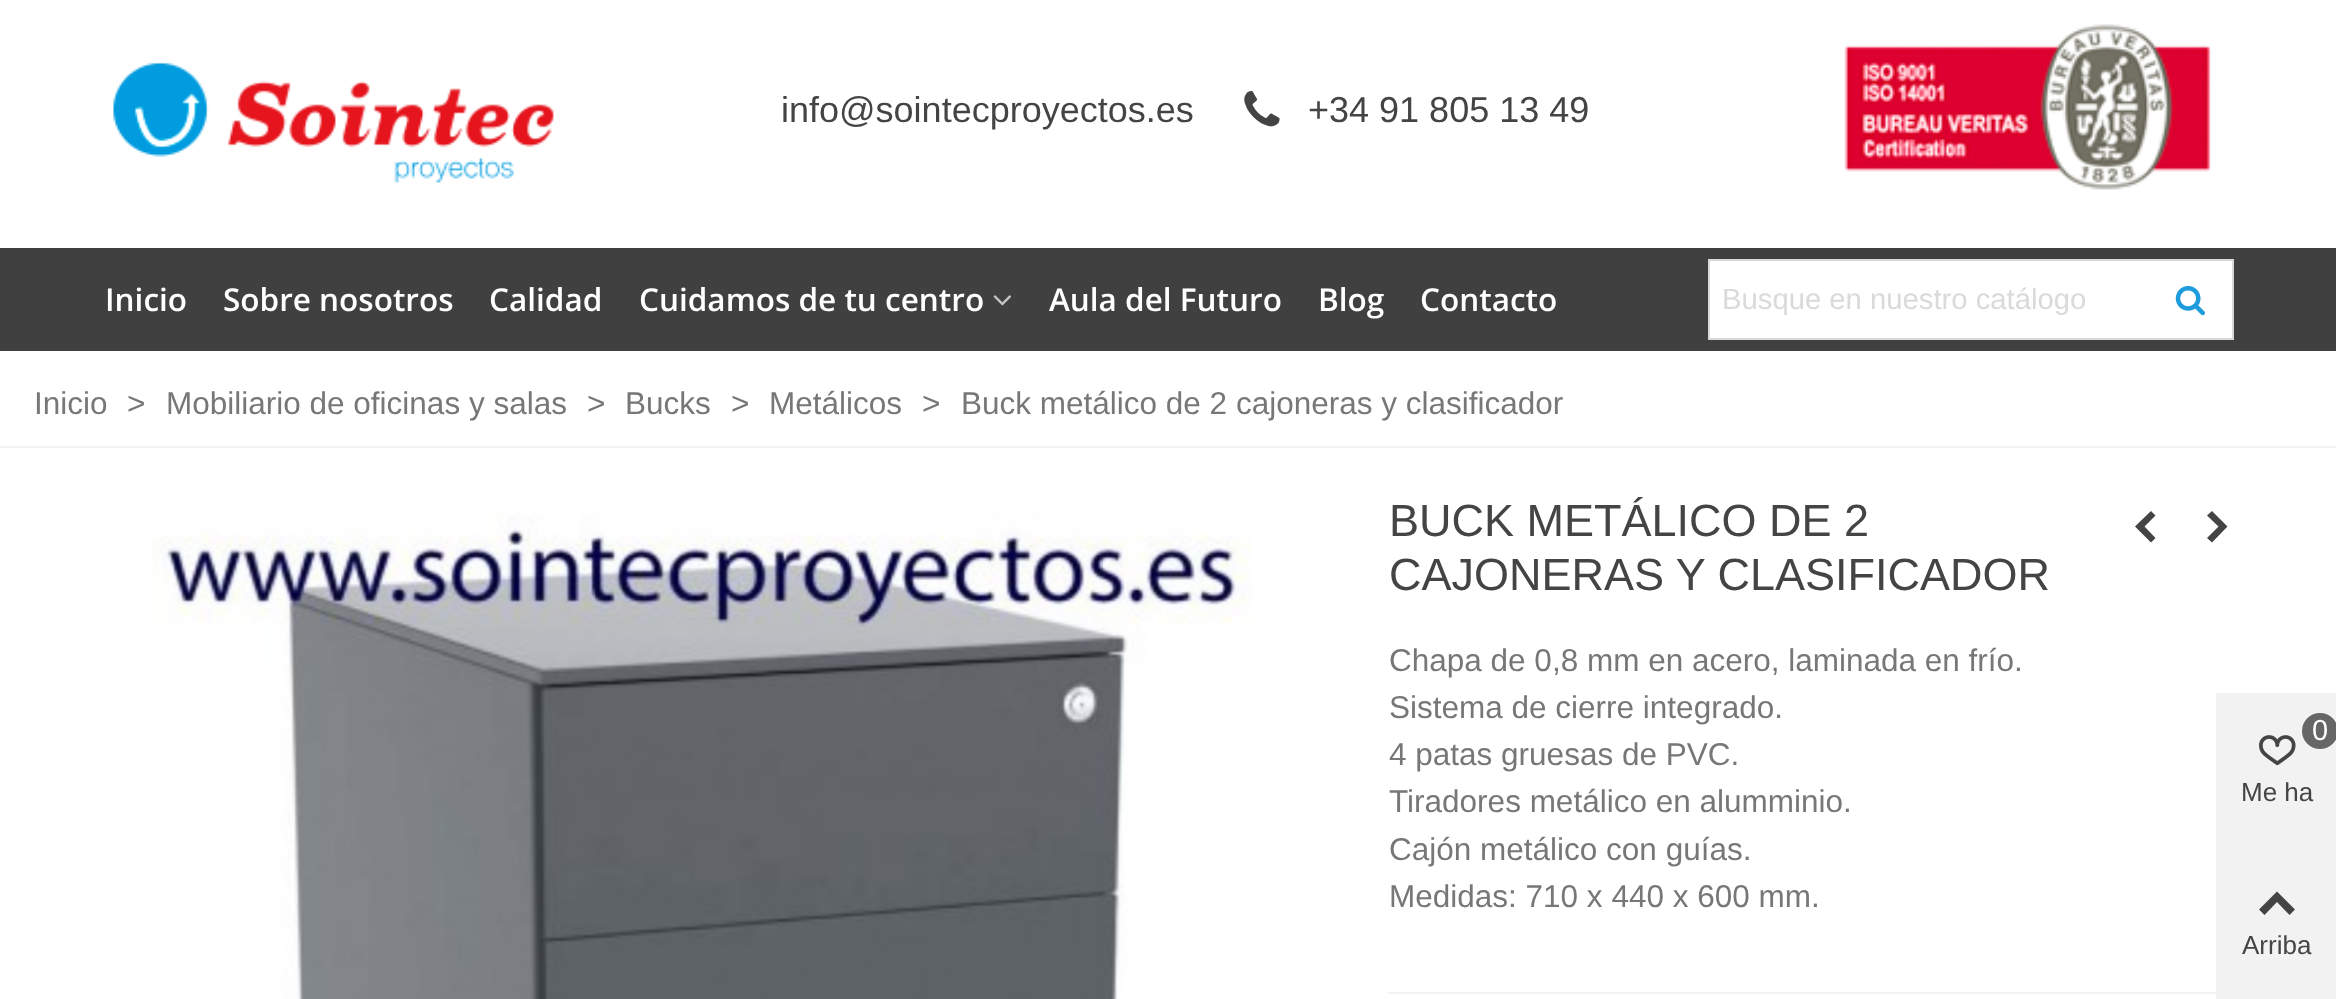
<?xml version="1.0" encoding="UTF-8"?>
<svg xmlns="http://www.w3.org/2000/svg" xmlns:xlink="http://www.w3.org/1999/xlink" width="2336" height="999">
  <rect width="100%" height="100%" fill="#ffffff" />
  <image x="113" y="62" width="441" height="121" xlink:href="image1.png" />
  <image x="1244" y="91" width="36" height="36" xlink:href="image2.png" />
  <image x="1844" y="24" width="367" height="166" xlink:href="image3.png" />
  <rect y="248" width="2336" height="103" fill="#404040" />
  <image x="993" y="295" width="19" height="11" xlink:href="image4.png" />
  <rect x="1709" y="260" width="524" height="79" fill="#ffffff" stroke="#d9d9d9" stroke-width="2" />
  <image x="2175" y="286" width="30" height="30" xlink:href="image5.png" />
  <rect y="446" width="2336" height="2" fill="#f2f2f2" />
  <image x="151" y="513" width="1102" height="486" xlink:href="image6.png" />
  <path d="M 2135 526.5 l 16 -15.5 l 4.5 4.5 l -11 11 l 11 11.5 l -4.5 4.5 z" fill="#444444" />
  <path d="M 2207 538 l 11.5 -11.5 l -11.5 -11 l 5 -4.5 l 15.5 15.5 l -15.5 16 z" fill="#444444" />
  <rect x="1388" y="992" width="828" height="2" fill="#f2f2f2" />
  <rect x="2216" y="693" width="120" height="306" fill="#f2f2f2" />
  <circle cx="2320" cy="731" r="18" fill="#666666" />
  <image x="2259" y="735" width="37" height="31" xlink:href="image7.png" />
  <path d="M 2259 909.5 l 18 -18 l 18 18 l -5.5 5.5 l -12.5 -13 l -12.5 13 z" fill="#444444" />
  <text x="781" y="122" style="font-family: Liberation Sans; font-size: 36px; fill: #444444">info@sointecproyectos.es</text>
  <text x="1308" y="122" style="font-family: Liberation Sans; font-size: 36px; fill: #444444">+34 91 805 13 49</text>
  <text x="105" y="311" style="font-family: Open Sans; font-size: 31.5px; font-weight: 600; fill: #ffffff">Inicio</text>
  <text x="223" y="311" style="font-family: Open Sans; font-size: 31.5px; font-weight: 600; fill: #ffffff">Sobre nosotros</text>
  <text x="489" y="311" style="font-family: Open Sans; font-size: 31.5px; font-weight: 600; fill: #ffffff">Calidad</text>
  <text x="639" y="311" style="font-family: Open Sans; font-size: 31.5px; font-weight: 600; fill: #ffffff">Cuidamos de tu centro</text>
  <text x="1049" y="311" style="font-family: Open Sans; font-size: 31.5px; font-weight: 600; fill: #ffffff">Aula del Futuro</text>
  <text x="1318" y="311" style="font-family: Open Sans; font-size: 31.5px; font-weight: 600; fill: #ffffff">Blog</text>
  <text x="1420" y="311" style="font-family: Open Sans; font-size: 31.5px; font-weight: 600; fill: #ffffff">Contacto</text>
  <text x="1722" y="309" style="font-family: Liberation Sans; font-size: 29.25px; fill: #dadada">Busque en nuestro catálogo</text>
  <text x="34" y="414" style="font-family: Liberation Sans; font-size: 31.5px; fill: #777777">Inicio</text>
  <text x="127" y="414" style="font-family: Liberation Sans; font-size: 31.5px; fill: #777777">&gt;</text>
  <text x="166" y="414" style="font-family: Liberation Sans; font-size: 31.5px; fill: #777777">Mobiliario de oficinas y salas</text>
  <text x="587" y="414" style="font-family: Liberation Sans; font-size: 31.5px; fill: #777777">&gt;</text>
  <text x="625" y="414" style="font-family: Liberation Sans; font-size: 31.5px; fill: #777777">Bucks</text>
  <text x="731" y="414" style="font-family: Liberation Sans; font-size: 31.5px; fill: #777777">&gt;</text>
  <text x="769" y="414" style="font-family: Liberation Sans; font-size: 31.5px; fill: #777777">Metálicos</text>
  <text x="922" y="414" style="font-family: Liberation Sans; font-size: 31.5px; fill: #777777">&gt;</text>
  <text x="961" y="414" style="font-family: Liberation Sans; font-size: 31.5px; fill: #777777">Buck metálico de 2 cajoneras y clasificador</text>
  <text x="1389" y="536" style="font-family: Liberation Sans; font-size: 45px; fill: #444444">BUCK METÁLICO DE 2</text>
  <text x="1389" y="590" style="font-family: Liberation Sans; font-size: 45px; fill: #444444">CAJONERAS Y CLASIFICADOR</text>
  <text x="1389" y="671" style="font-family: Liberation Sans; font-size: 31.5px; fill: #777777">Chapa de 0,8 mm en acero, laminada en frío.</text>
  <text x="1389" y="718" style="font-family: Liberation Sans; font-size: 31.5px; fill: #777777">Sistema de cierre integrado.</text>
  <text x="1389" y="765" style="font-family: Liberation Sans; font-size: 31.5px; fill: #777777">4 patas gruesas de PVC.</text>
  <text x="1389" y="812" style="font-family: Liberation Sans; font-size: 31.5px; fill: #777777">Tiradores metálico en alumminio.</text>
  <text x="1389" y="860" style="font-family: Liberation Sans; font-size: 31.5px; fill: #777777">Cajón metálico con guías.</text>
  <text x="1389" y="907" style="font-family: Liberation Sans; font-size: 31.5px; fill: #777777">Medidas: 710 x 440 x 600 mm.</text>
  <text x="2312" y="740" style="font-family: Liberation Sans; font-size: 29px; fill: #ffffff">0</text>
  <text x="2241" y="801" style="font-family: Liberation Sans; font-size: 26px; fill: #444444">Me ha</text>
  <text x="2242" y="954" style="font-family: Liberation Sans; font-size: 26px; fill: #444444">Arriba</text>
</svg>
